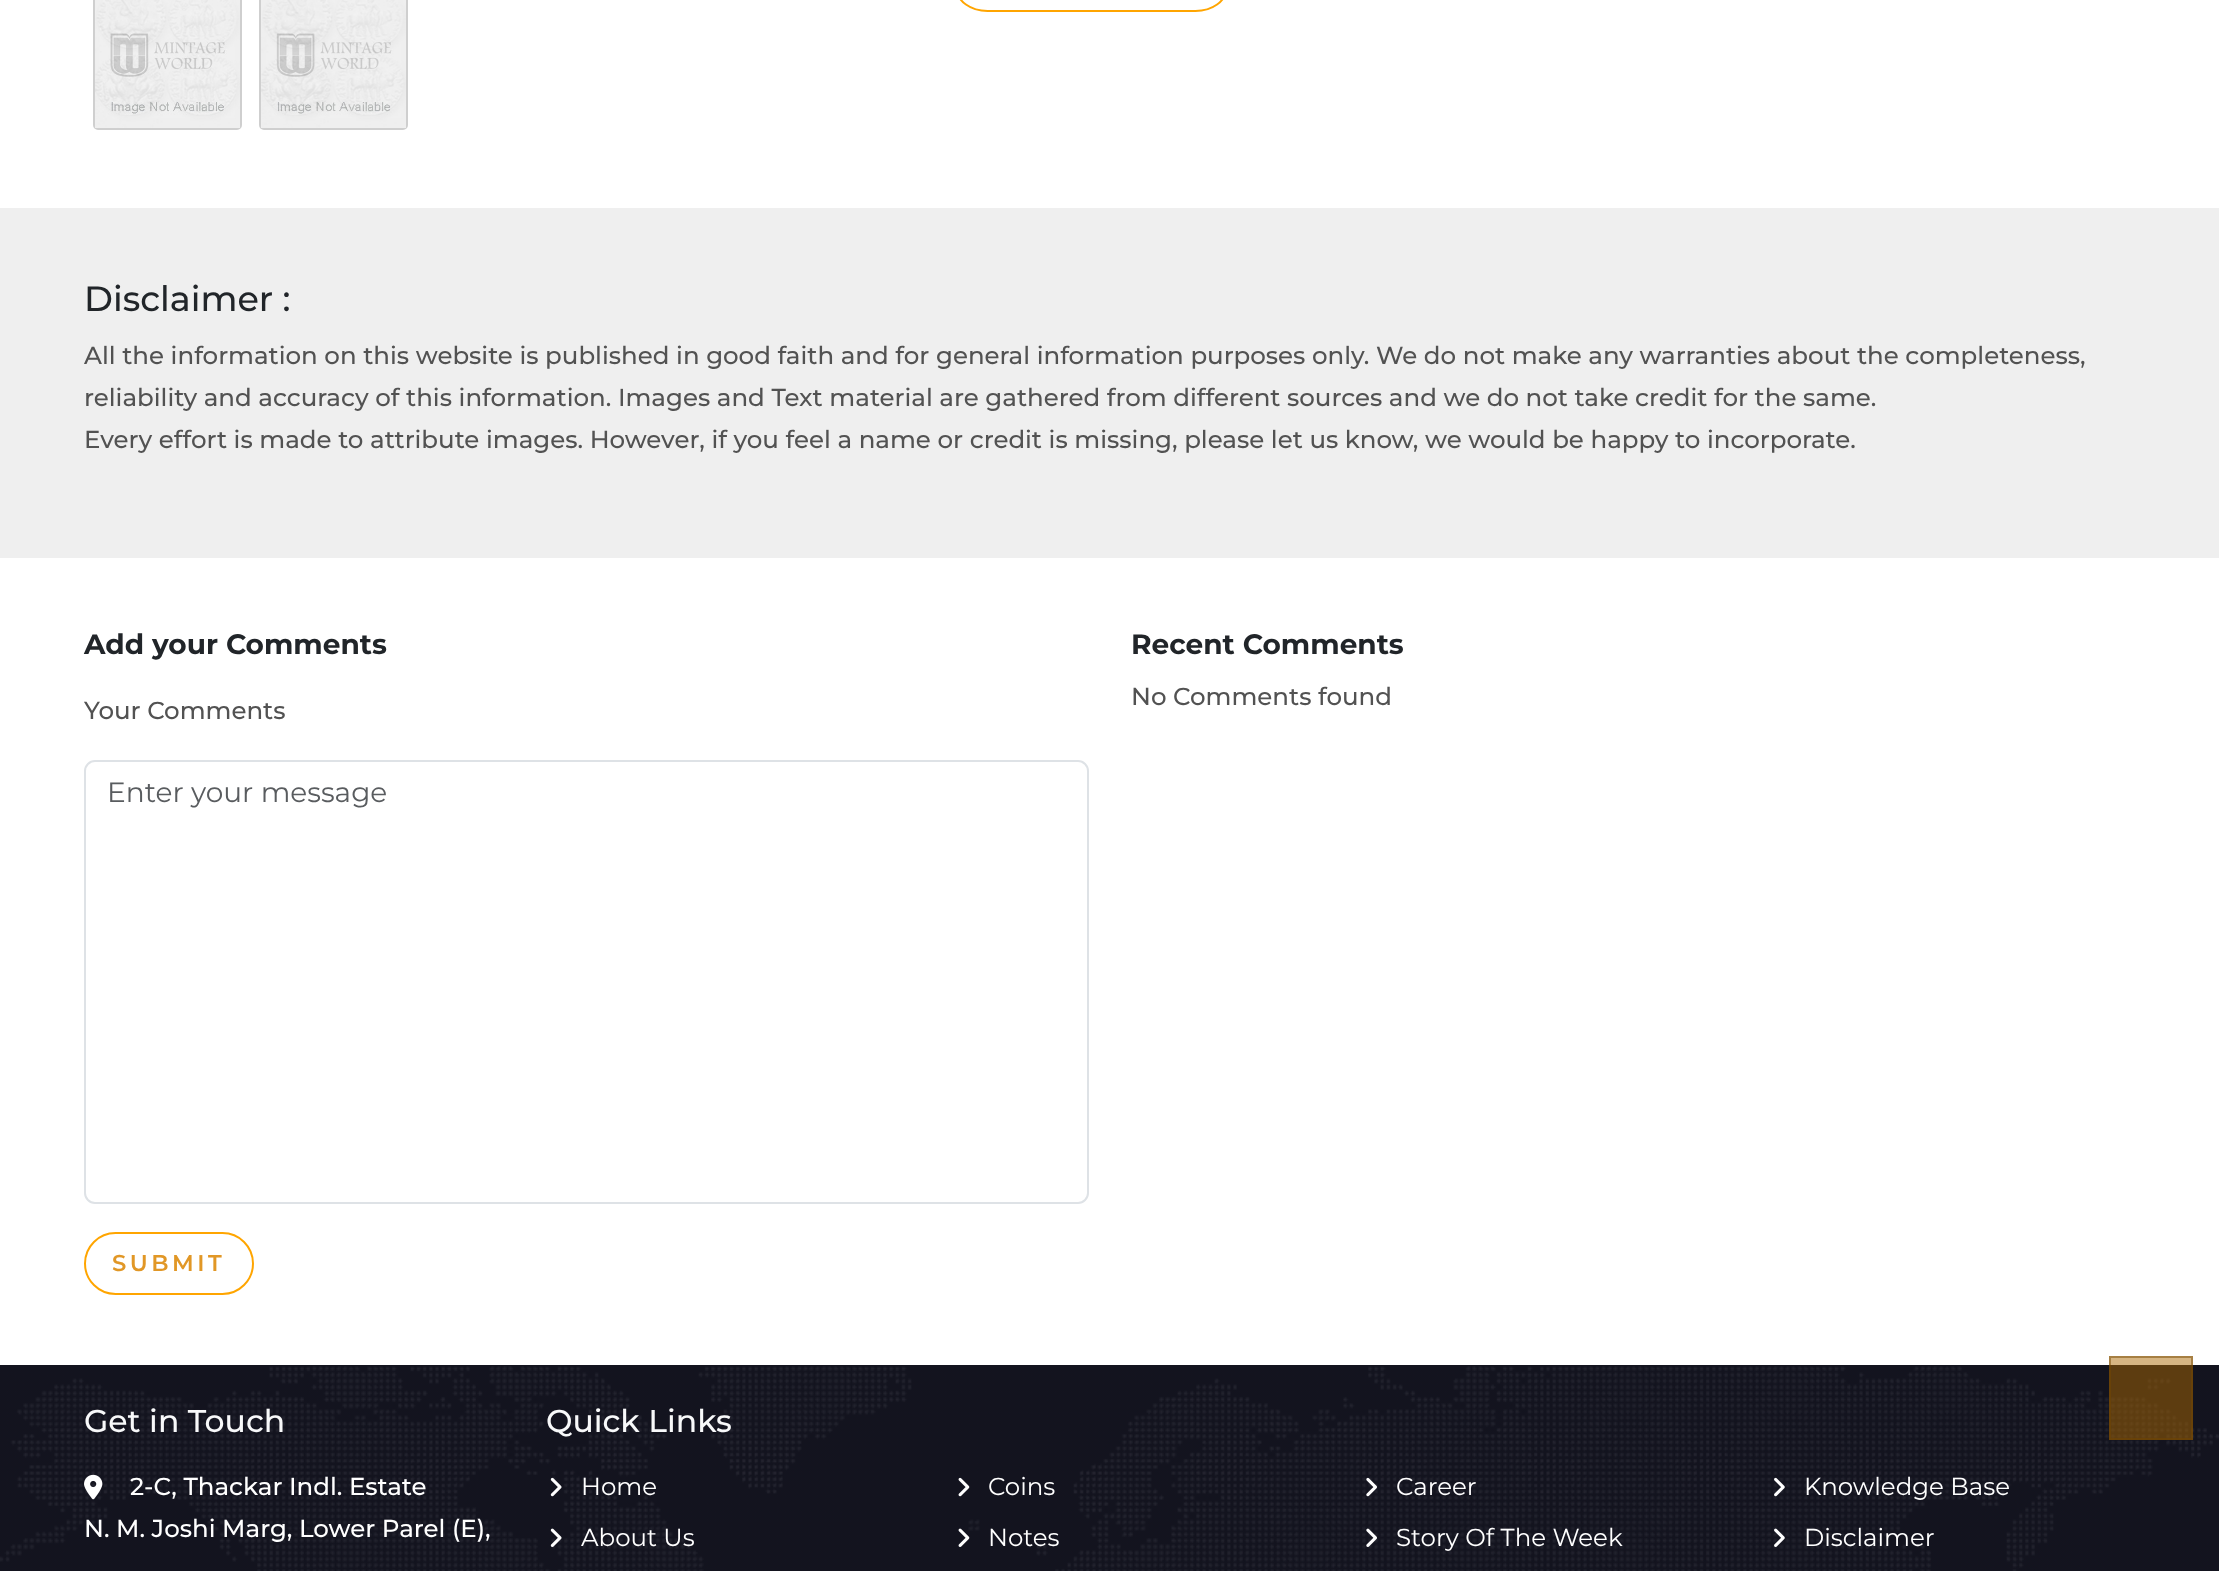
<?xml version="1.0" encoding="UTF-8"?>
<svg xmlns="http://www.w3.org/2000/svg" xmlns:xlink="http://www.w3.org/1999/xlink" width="2219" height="1571">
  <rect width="100%" height="100%" fill="#ffffff" />
  <rect x="94" y="-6" width="147" height="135" rx="4" fill="none" stroke="#cfcfcf" stroke-width="2" />
  <image x="95" y="0" width="145" height="128" xlink:href="image1.png" />
  <rect x="260" y="-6" width="147" height="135" rx="4" fill="none" stroke="#cfcfcf" stroke-width="2" />
  <image x="261" y="0" width="145" height="128" xlink:href="image2.png" />
  <rect x="957" y="-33" width="269" height="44" rx="30.5" fill="none" stroke="#ffa500" stroke-width="2" />
  <rect y="208" width="2219" height="350" fill="#efefef" />
  <rect x="85" y="761" width="1003" height="442" rx="10" fill="none" stroke="#dee2e6" stroke-width="2" />
  <rect x="85" y="1233" width="168" height="61" rx="30.5" fill="none" stroke="#ffa500" stroke-width="2" />
  <rect y="1365" width="2219" height="206" fill="#212529" />
  <image x="0" y="1365" width="2219" height="206" xlink:href="image3.png" />
  <rect x="2109" y="1356" width="84" height="84" fill="#ab6802" fill-opacity="0.49" />
  <rect x="2110" y="1357" width="82" height="82" fill="none" stroke="#744701" stroke-opacity="0.49" stroke-width="2" />
  <image x="84" y="1474" width="19" height="26" xlink:href="image4.png" />
  <image x="550" y="1477" width="12" height="20" xlink:href="image5.png" />
  <image x="550" y="1528" width="12" height="19" xlink:href="image6.png" />
  <image x="958" y="1477" width="12" height="20" xlink:href="image7.png" />
  <image x="958" y="1528" width="12" height="19" xlink:href="image8.png" />
  <image x="1366" y="1477" width="11" height="20" xlink:href="image9.png" />
  <image x="1366" y="1528" width="11" height="19" xlink:href="image10.png" />
  <image x="1774" y="1477" width="11" height="20" xlink:href="image11.png" />
  <image x="1774" y="1528" width="11" height="19" xlink:href="image12.png" />
  <text x="84" y="311" style="font-family: Montserrat; font-size: 35px; font-weight: 500; fill: #212529">Disclaimer :</text>
  <text x="84" y="364" style="font-family: Montserrat; font-size: 24.5px; font-weight: 500; fill: #525252">All the information on this website is published in good faith and for general information purposes only. We do not make any warranties about the completeness,</text>
  <text x="84" y="406" style="font-family: Montserrat; font-size: 24.5px; font-weight: 500; fill: #525252">reliability and accuracy of this information. Images and Text material are gathered from different sources and we do not take credit for the same.</text>
  <text x="84" y="448" style="font-family: Montserrat; font-size: 24.5px; font-weight: 500; fill: #525252">Every effort is made to attribute images. However, if you feel a name or credit is missing, please let us know, we would be happy to incorporate.</text>
  <text x="84" y="654" style="font-family: Montserrat; font-size: 28px; font-weight: bold; fill: #212529">Add your Comments</text>
  <text x="84" y="719" style="font-family: Montserrat; font-size: 24.5px; font-weight: 500; fill: #525252">Your Comments</text>
  <text x="107" y="802" style="font-family: Montserrat; font-size: 28px; fill: #595c5f">Enter your message</text>
  <text x="112" y="1271" style="font-family: Montserrat; font-size: 22.75px; font-weight: 600; letter-spacing: 3.5px; fill: #e19726">SUBMIT</text>
  <text x="1131" y="654" style="font-family: Montserrat; font-size: 28px; font-weight: bold; fill: #212529">Recent Comments</text>
  <text x="1131" y="705" style="font-family: Montserrat; font-size: 24.5px; font-weight: 500; fill: #525252">No Comments found</text>
  <text x="84" y="1432" style="font-family: Montserrat; font-size: 31.5px; font-weight: 500; fill: #f8f9fa">Get in Touch</text>
  <text x="130" y="1495" style="font-family: Montserrat; font-size: 24.5px; font-weight: 500; fill: #ffffff">2-C, Thackar Indl. Estate</text>
  <text x="84" y="1537" style="font-family: Montserrat; font-size: 24.5px; font-weight: 500; fill: #ffffff">N. M. Joshi Marg, Lower Parel (E),</text>
  <text x="546" y="1432" style="font-family: Montserrat; font-size: 31.5px; font-weight: 500; fill: #f8f9fa">Quick Links</text>
  <text x="581" y="1495" style="font-family: Montserrat; font-size: 24.5px; fill: #ffffff">Home</text>
  <text x="581" y="1546" style="font-family: Montserrat; font-size: 24.5px; fill: #ffffff">About Us</text>
  <text x="988" y="1495" style="font-family: Montserrat; font-size: 24.5px; fill: #ffffff">Coins</text>
  <text x="988" y="1546" style="font-family: Montserrat; font-size: 24.5px; fill: #ffffff">Notes</text>
  <text x="1396" y="1495" style="font-family: Montserrat; font-size: 24.5px; fill: #ffffff">Career</text>
  <text x="1396" y="1546" style="font-family: Montserrat; font-size: 24.5px; fill: #ffffff">Story Of The Week</text>
  <text x="1804" y="1495" style="font-family: Montserrat; font-size: 24.5px; fill: #ffffff">Knowledge Base</text>
  <text x="1804" y="1546" style="font-family: Montserrat; font-size: 24.5px; fill: #ffffff">Disclaimer</text>
</svg>
